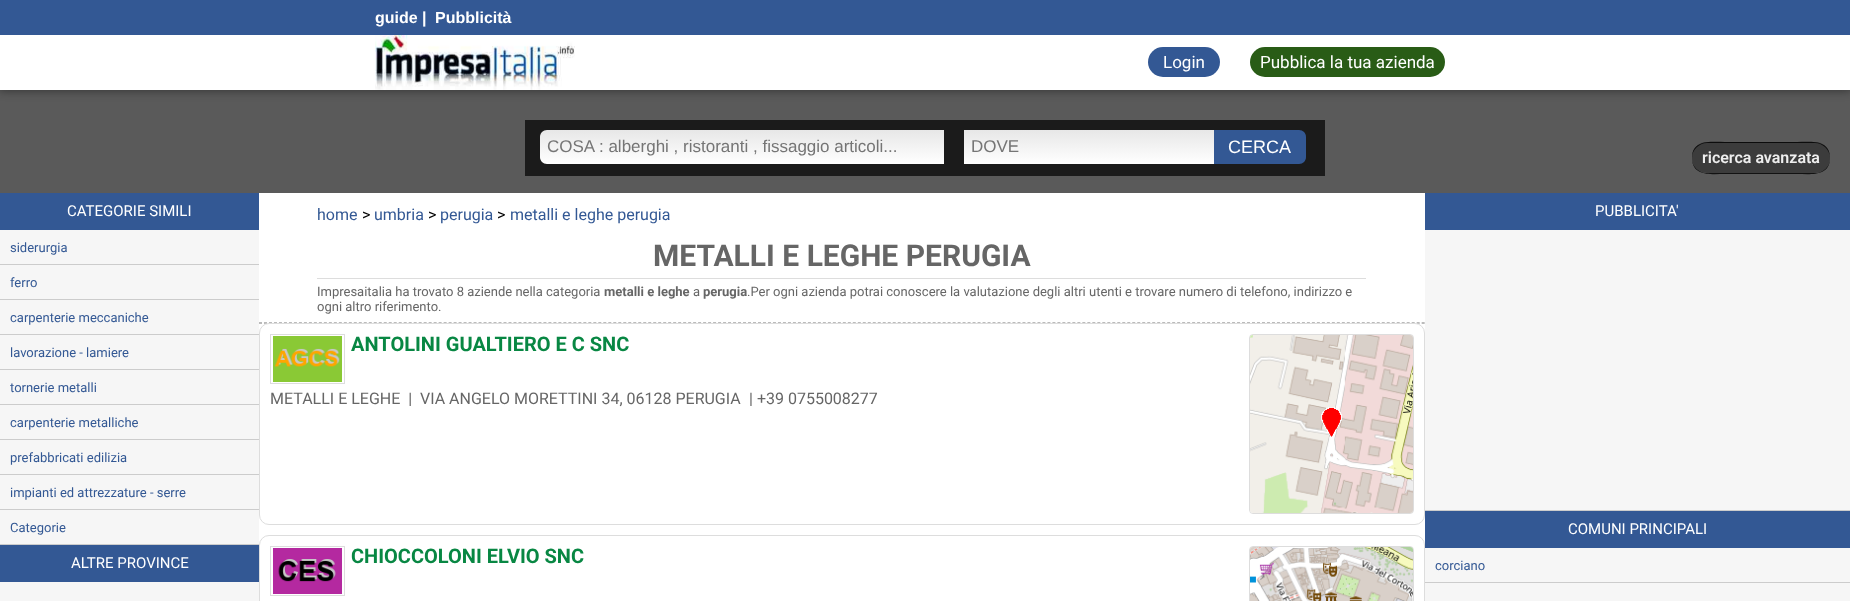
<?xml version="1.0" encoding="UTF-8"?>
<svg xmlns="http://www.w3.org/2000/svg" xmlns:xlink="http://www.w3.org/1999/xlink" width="1850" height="601">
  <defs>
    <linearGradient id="g1" gradientUnits="userSpaceOnUse" x1="742" y1="130" x2="742" y2="164"><stop offset="0" stop-color="#e7e7e7" /><stop offset="1" stop-color="#ffffff" /></linearGradient>
    <linearGradient id="g2" gradientUnits="userSpaceOnUse" x1="1089" y1="130" x2="1089" y2="164"><stop offset="0" stop-color="#e7e7e7" /><stop offset="1" stop-color="#ffffff" /></linearGradient>
  </defs>
  <rect width="100%" height="100%" fill="#ffffff" />
  <rect y="90" width="1850" height="103" fill="#5a5a5a" />
  <rect x="-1" y="34" width="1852" height="57" fill="#000000" fill-opacity="0.4" filter="blur(5px)" />
  <rect width="1850" height="35" fill="#335894" />
  <rect y="35" width="1850" height="55" fill="#ffffff" />
  <image x="375" y="35" width="200" height="55" xlink:href="image1.png" />
  <rect x="1148" y="47" width="72" height="30" rx="15" fill="#335894" />
  <rect x="1250" y="47" width="195" height="30" rx="15" fill="#295c16" />
  <rect x="525" y="120" width="800" height="56" fill="#1b1b1b" />
  <path d="M 547 130 h 397 v 34 h -397 c -4 0 -7 -3 -7 -7 v -20 c 0 -4 3 -7 7 -7 z" fill="url(#g1)" />
  <rect x="964" y="130" width="250" height="34" fill="url(#g2)" />
  <path d="M 1214 130 h 85 c 4 0 7 3 7 7 v 20 c 0 4 -3 7 -7 7 h -85 z" fill="#335894" />
  <path d="M 1692 158 c 0 19 20 16 33 16 h 72 c 13 0 33 3 33 -16 c 0 8 -7 15 -15 15 h -108 c -8 0 -15 -7 -15 -15 z" fill="#121212" />
  <rect x="1692" y="142" width="138" height="31" rx="15" fill="#3c3c3c" />
  <path d="M 1707 143 h 108 c 8 0 15 7 15 15 c 0 -19 -20 -16 -33 -16 h -72 c -13 0 -33 -3 -33 16 c 0 -8 7 -15 15 -15 z" fill="#000000" fill-opacity="0.8" />
  <rect y="193" width="259" height="37" fill="#335894" />
  <rect y="230" width="259" height="314" fill="#f6f6f6" />
  <rect y="264" width="259" height="1" fill="#cccccc" />
  <rect y="299" width="259" height="1" fill="#cccccc" />
  <rect y="334" width="259" height="1" fill="#cccccc" />
  <rect y="369" width="259" height="1" fill="#cccccc" />
  <rect y="404" width="259" height="1" fill="#cccccc" />
  <rect y="439" width="259" height="1" fill="#cccccc" />
  <rect y="474" width="259" height="1" fill="#cccccc" />
  <rect y="509" width="259" height="1" fill="#cccccc" />
  <rect y="544" width="259" height="1" fill="#cccccc" />
  <rect y="545" width="259" height="37" fill="#335894" />
  <rect y="582" width="259" height="19" fill="#f6f6f6" />
  <path d="M 259 322.5 h 1166" fill="none" stroke="#bbbbbb" stroke-dasharray="3 1.99" />
  <rect x="317" y="278" width="1049" height="1" fill="#dddddd" />
  <path d="M 259 323.5 h 1166" fill="none" stroke="#bbbbbb" stroke-dasharray="3 1.99" />
  <rect x="259.5" y="323.5" width="1165" height="201" rx="9.5" fill="#ffffff" stroke="#dddddd" />
  <rect x="270.5" y="334.5" width="74" height="49" fill="none" stroke="#dddddd" />
  <image x="273" y="336" width="69" height="46" xlink:href="image2.png" />
  <rect x="1249.5" y="334.5" width="164" height="179" rx="3.5" fill="none" stroke="#dddddd" />
  <image x="1250" y="335" width="163" height="178" xlink:href="image3.png" />
  <rect x="259.5" y="535.5" width="1165" height="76" rx="9.5" fill="none" stroke="#dddddd" />
  <rect x="270.5" y="546.5" width="74" height="49" fill="none" stroke="#dddddd" />
  <image x="273" y="548" width="69" height="46" xlink:href="image4.png" />
  <rect x="1249.5" y="546.5" width="164" height="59" rx="3.5" fill="none" stroke="#dddddd" />
  <image x="1250" y="547" width="163" height="54" xlink:href="image5.png" />
  <rect x="1425" y="193" width="425" height="37" fill="#335894" />
  <rect x="1425" y="230" width="425" height="280" fill="#f6f6f6" />
  <rect x="1425" y="510" width="425" height="1" fill="#cccccc" />
  <rect x="1425" y="511" width="425" height="37" fill="#335894" />
  <rect x="1425" y="548" width="425" height="53" fill="#f6f6f6" />
  <rect x="1425" y="582" width="425" height="1" fill="#cccccc" />
  <text x="375" y="23" style="font-family: Liberation Sans; font-size: 16px; font-weight: bold; fill: #ffffff">guide |</text>
  <text x="435" y="23" style="font-family: Liberation Sans; font-size: 16px; font-weight: bold; fill: #ffffff">Pubblicità</text>
  <text x="1163" y="68" style="font-family: Roboto; font-size: 17px; fill: #ffffff">Login</text>
  <text x="1260" y="68" style="font-family: Roboto; font-size: 17px; fill: #ffffff">Pubblica la tua azienda</text>
  <text x="547" y="152" style="font-family: Liberation Sans; font-size: 17px; fill: #757575">COSA : alberghi , ristoranti , fissaggio articoli...</text>
  <text x="971" y="152" style="font-family: Liberation Sans; font-size: 17px; fill: #757575">DOVE</text>
  <text x="1228" y="153" style="font-family: Liberation Sans; font-size: 18px; fill: #ffffff">CERCA</text>
  <text x="1702" y="163" style="font-family: Roboto; font-size: 16px; font-weight: 600; fill: #eeeeee">ricerca avanzata</text>
  <text x="67" y="216" style="font-family: Roboto; font-size: 15px; fill: #ffffff">CATEGORIE SIMILI</text>
  <text x="10" y="252" style="font-family: Roboto; font-size: 13px; fill: #335894">siderurgia</text>
  <text x="10" y="287" style="font-family: Roboto; font-size: 13px; fill: #335894">ferro</text>
  <text x="10" y="322" style="font-family: Roboto; font-size: 13px; fill: #335894">carpenterie meccaniche</text>
  <text x="10" y="357" style="font-family: Roboto; font-size: 13px; fill: #335894">lavorazione - lamiere</text>
  <text x="10" y="392" style="font-family: Roboto; font-size: 13px; fill: #335894">tornerie metalli</text>
  <text x="10" y="427" style="font-family: Roboto; font-size: 13px; fill: #335894">carpenterie metalliche</text>
  <text x="10" y="462" style="font-family: Roboto; font-size: 13px; fill: #335894">prefabbricati edilizia</text>
  <text x="10" y="497" style="font-family: Roboto; font-size: 13px; fill: #335894">impianti ed attrezzature - serre</text>
  <text x="10" y="532" style="font-family: Roboto; font-size: 13px; fill: #335894">Categorie</text>
  <text x="71" y="568" style="font-family: Roboto; font-size: 15px; fill: #ffffff">ALTRE PROVINCE</text>
  <text x="317" y="220" style="font-family: Roboto; font-size: 16px; fill: #335894">home</text>
  <text x="362" y="220" style="font-family: Roboto; font-size: 16px; fill: #000000">&gt;</text>
  <text x="374" y="220" style="font-family: Roboto; font-size: 16px; fill: #335894">umbria</text>
  <text x="428" y="220" style="font-family: Roboto; font-size: 16px; fill: #000000">&gt;</text>
  <text x="440" y="220" style="font-family: Roboto; font-size: 16px; fill: #335894">perugia</text>
  <text x="497" y="220" style="font-family: Roboto; font-size: 16px; fill: #000000">&gt;</text>
  <text x="510" y="220" style="font-family: Roboto; font-size: 16px; fill: #335894">metalli e leghe perugia</text>
  <text x="653" y="266" style="font-family: Roboto; font-size: 30px; font-weight: bold; fill: #666666">METALLI E LEGHE PERUGIA</text>
  <text x="317" y="296" style="font-family: Roboto; font-size: 13px; fill: #666666">Impresaitalia ha trovato 8 aziende nella categoria</text>
  <text x="604" y="296" style="font-family: Roboto; font-size: 13px; font-weight: bold; fill: #666666">metalli e leghe</text>
  <text x="693" y="296" style="font-family: Roboto; font-size: 13px; fill: #666666">a</text>
  <text x="703" y="296" style="font-family: Roboto; font-size: 13px; font-weight: bold; fill: #666666">perugia</text>
  <text x="747" y="296" style="font-family: Roboto; font-size: 13px; fill: #666666">.Per ogni azienda potrai conoscere la valutazione degli altri utenti e trovare numero di telefono, indirizzo e</text>
  <text x="317" y="311" style="font-family: Roboto; font-size: 13px; fill: #666666">ogni altro riferimento.</text>
  <text x="351" y="351" style="font-family: Roboto; font-size: 20px; font-weight: bold; fill: #088743">ANTOLINI GUALTIERO E C SNC</text>
  <text x="270" y="404" style="font-family: Roboto; font-size: 16px; fill: #666666" xml:space="preserve">METALLI E LEGHE  |</text>
  <text x="420" y="404" style="font-family: Roboto; font-size: 16px; fill: #666666">VIA ANGELO MORETTINI 34, 06128 PERUGIA</text>
  <text x="749" y="404" style="font-family: Roboto; font-size: 16px; fill: #666666">| +39 0755008277</text>
  <text x="351" y="563" style="font-family: Roboto; font-size: 20px; font-weight: bold; fill: #088743">CHIOCCOLONI ELVIO SNC</text>
  <text x="1595" y="216" style="font-family: Roboto; font-size: 15px; fill: #ffffff">PUBBLICITA'</text>
  <text x="1568" y="534" style="font-family: Roboto; font-size: 15px; fill: #ffffff">COMUNI PRINCIPALI</text>
  <text x="1435" y="570" style="font-family: Roboto; font-size: 13px; fill: #335894">corciano</text>
</svg>
